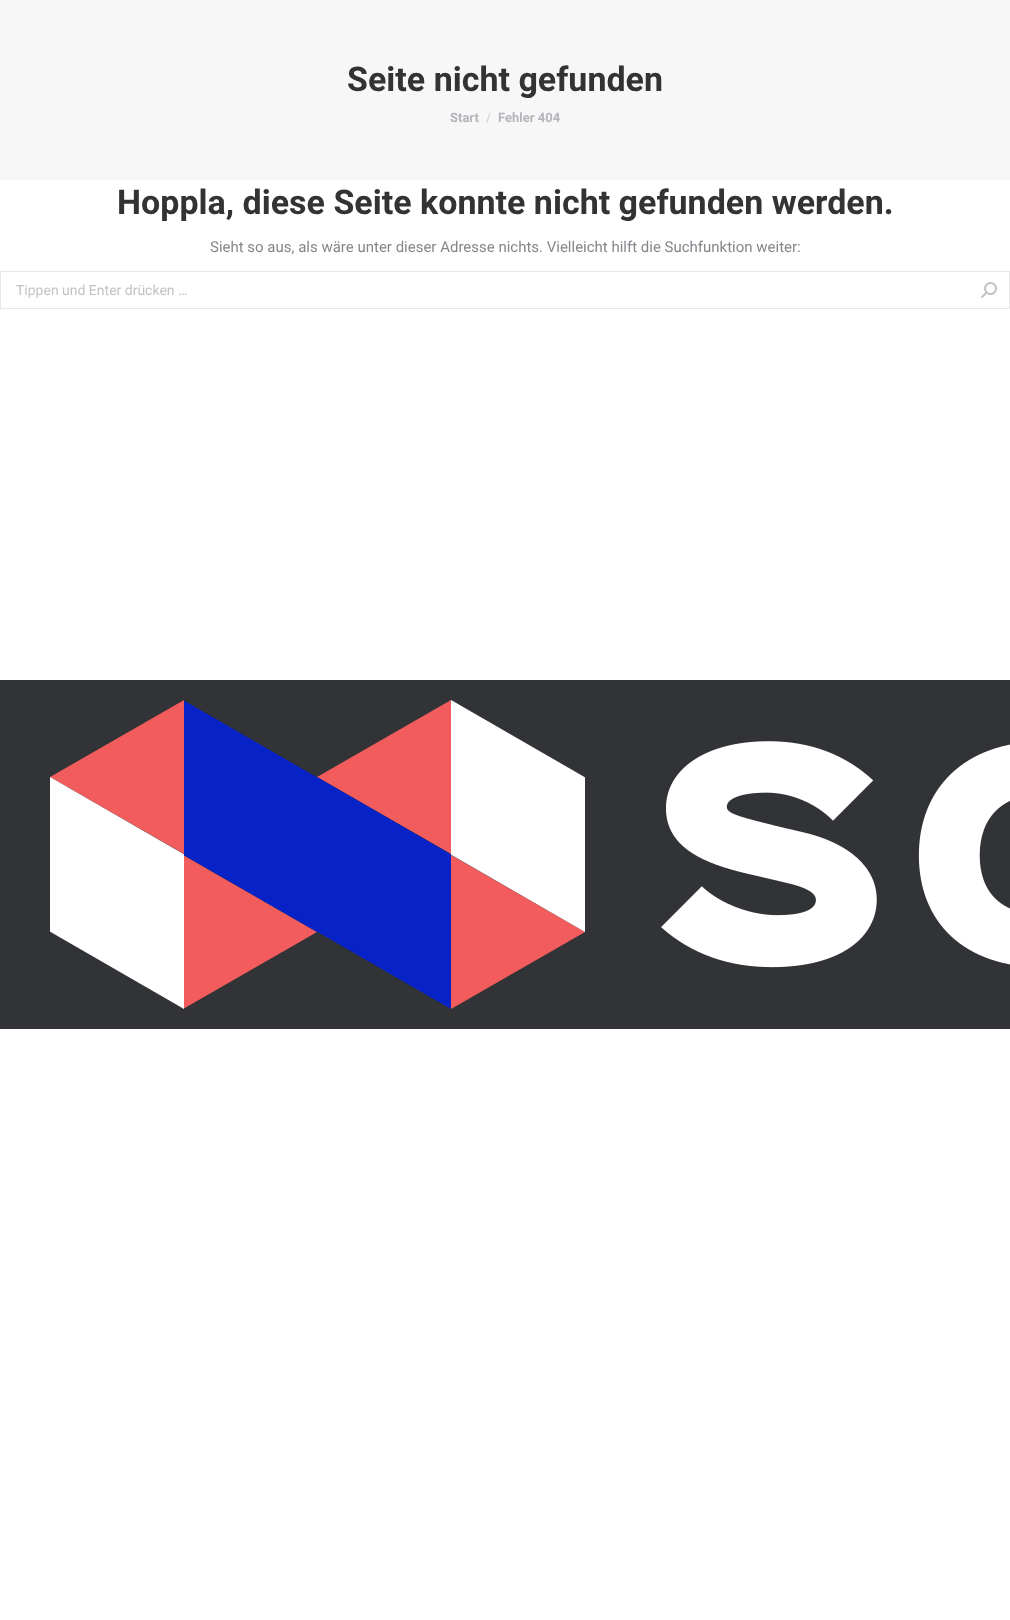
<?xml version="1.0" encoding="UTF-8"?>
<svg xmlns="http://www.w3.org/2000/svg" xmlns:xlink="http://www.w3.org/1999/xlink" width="1010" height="1620">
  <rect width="100%" height="100%" fill="#ffffff" />
  <rect width="1010" height="180" fill="#f7f7f7" />
  <rect x="0.5" y="271.5" width="1009" height="37" fill="none" stroke="#e8e8e8" />
  <image x="981" y="282" width="16" height="16" xlink:href="image1.png" />
  <rect y="680" width="1010" height="349" fill="#313336" />
  <image x="50" y="700" width="960" height="309" xlink:href="image2.png" />
  <text x="347" y="91" style="font-family: Roboto; font-size: 34px; font-weight: bold; fill: #333333">Seite nicht gefunden</text>
  <text x="450" y="122" style="font-family: Roboto; font-size: 13px; font-weight: bold; fill: #b4b5bb">Start</text>
  <text x="486" y="122" style="font-family: Roboto; font-size: 13px; font-weight: bold; fill: #d6d6d9">/</text>
  <text x="498" y="122" style="font-family: Roboto; font-size: 13px; font-weight: bold; fill: #b4b5bb">Fehler 404</text>
  <text x="117" y="214" style="font-family: Roboto; font-size: 34px; font-weight: bold; fill: #333333">Hoppla, diese Seite konnte nicht gefunden werden.</text>
  <text x="210" y="252" style="font-family: Roboto; font-size: 15px; fill: #85868c">Sieht so aus, als wäre unter dieser Adresse nichts. Vielleicht hilft die Suchfunktion weiter:</text>
  <text x="16" y="295" style="font-family: Roboto; font-size: 14px; fill: #c1c2c5">Tippen und Enter drücken …</text>
</svg>
